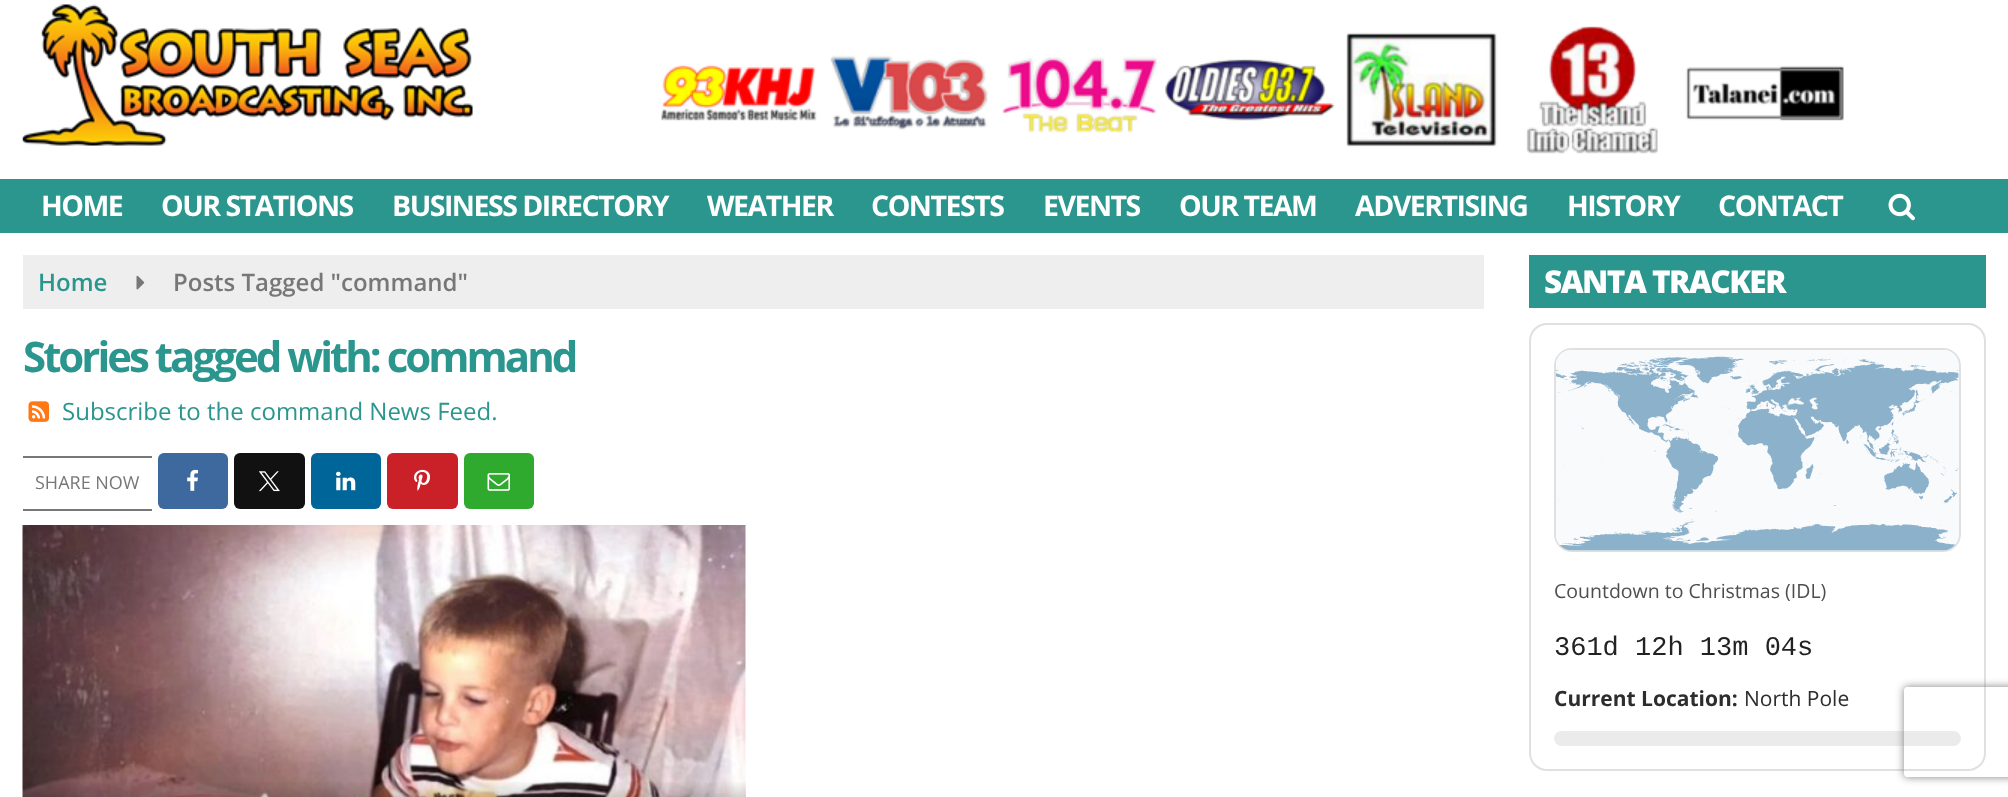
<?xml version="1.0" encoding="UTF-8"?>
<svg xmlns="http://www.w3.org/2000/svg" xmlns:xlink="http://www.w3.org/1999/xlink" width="2008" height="797">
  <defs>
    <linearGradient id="g1" gradientUnits="userSpaceOnUse" x1="384" y1="780" x2="384" y2="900"><stop offset="0" stop-color="#000000" stop-opacity="0" /><stop offset="0.9" stop-color="#000000" /></linearGradient>
    <clipPath id="clip1"><path d="M 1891 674 h 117 v 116 h -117 z m 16 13 h 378 c 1.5 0 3 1.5 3 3 v 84 c 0 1.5 -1.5 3 -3 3 h -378 c -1.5 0 -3 -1.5 -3 -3 v -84 c 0 -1.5 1.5 -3 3 -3 z" clip-rule="evenodd" /></clipPath>
  </defs>
  <rect width="100%" height="100%" fill="#ffffff" />
  <image x="22" y="4" width="451" height="142" xlink:href="image1.png" />
  <image x="661" y="26" width="1183" height="128" xlink:href="image2.png" />
  <rect y="179" width="2008" height="54" fill="#2a968d" />
  <image x="1888" y="193" width="27" height="28" xlink:href="image3.png" />
  <rect x="23" y="255" width="1461" height="54" fill="#eeeeee" />
  <image x="136" y="275" width="9" height="15" xlink:href="image4.png" />
  <image x="28" y="401" width="22" height="21" xlink:href="image5.png" />
  <rect x="23" y="456" width="129" height="2" fill="#777777" />
  <rect x="23" y="509" width="129" height="2" fill="#777777" />
  <rect x="158" y="453" width="70" height="56" rx="6" fill="#3d699e" />
  <image x="187" y="469" width="12" height="22" xlink:href="image6.png" />
  <rect x="234" y="453" width="71" height="56" rx="6" fill="#111111" />
  <image x="258" y="471" width="22" height="21" xlink:href="image7.png" />
  <rect x="311" y="453" width="70" height="56" rx="6" fill="#006699" />
  <image x="336" y="471" width="20" height="20" xlink:href="image8.png" />
  <rect x="387" y="453" width="71" height="56" rx="6" fill="#ca2027" />
  <image x="414" y="469" width="17" height="22" xlink:href="image9.png" />
  <rect x="464" y="453" width="70" height="56" rx="6" fill="#2fa92e" />
  <image x="487" y="473" width="23" height="18" xlink:href="image10.png" />
  <image x="22" y="525" width="724" height="272" xlink:href="image11.png" />
  <rect x="23" y="782" width="723" height="15" fill="url(#g1)" />
  <rect x="1529" y="255" width="457" height="53" fill="#2a968d" />
  <rect x="1530" y="324" width="455" height="446" rx="17" fill="none" stroke="#e0e0e0" stroke-width="2" />
  <rect x="1554" y="348" width="407" height="204" rx="18" fill="#f8fafc" />
  <rect x="1555" y="349" width="405" height="202" rx="17" fill="none" stroke="#000000" stroke-opacity="0.1" stroke-width="2" />
  <image x="1556" y="350" width="403" height="201" xlink:href="image12.png" />
  <rect x="1554" y="731" width="407" height="15" rx="7.5" fill="#ebebeb" />
  <g clip-path="url(#clip1)">
    <rect x="1904" y="687" width="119" height="90" rx="3" fill="#808080" filter="blur(4px)" />
  </g>
  <text x="41" y="216" style="font-family: Open Sans; font-size: 28.5px; font-weight: bold; letter-spacing: -1.5px; fill: #ffffff">HOME</text>
  <text x="161" y="216" style="font-family: Open Sans; font-size: 28.5px; font-weight: bold; letter-spacing: -1.5px; fill: #ffffff">OUR STATIONS</text>
  <text x="392" y="216" style="font-family: Open Sans; font-size: 28.5px; font-weight: bold; letter-spacing: -1.5px; fill: #ffffff">BUSINESS DIRECTORY</text>
  <text x="707" y="216" style="font-family: Open Sans; font-size: 28.5px; font-weight: bold; letter-spacing: -1.5px; fill: #ffffff">WEATHER</text>
  <text x="871" y="216" style="font-family: Open Sans; font-size: 28.5px; font-weight: bold; letter-spacing: -1.5px; fill: #ffffff">CONTESTS</text>
  <text x="1043" y="216" style="font-family: Open Sans; font-size: 28.5px; font-weight: bold; letter-spacing: -1.5px; fill: #ffffff">EVENTS</text>
  <text x="1179" y="216" style="font-family: Open Sans; font-size: 28.5px; font-weight: bold; letter-spacing: -1.5px; fill: #ffffff">OUR TEAM</text>
  <text x="1355" y="216" style="font-family: Open Sans; font-size: 28.5px; font-weight: bold; letter-spacing: -1.5px; fill: #ffffff">ADVERTISING</text>
  <text x="1567" y="216" style="font-family: Open Sans; font-size: 28.5px; font-weight: bold; letter-spacing: -1.5px; fill: #ffffff">HISTORY</text>
  <text x="1718" y="216" style="font-family: Open Sans; font-size: 28.5px; font-weight: bold; letter-spacing: -1.5px; fill: #ffffff">CONTACT</text>
  <text x="38" y="291" style="font-family: Open Sans; font-size: 24px; font-weight: 600; fill: #2a968d">Home</text>
  <text x="173" y="291" style="font-family: Open Sans; font-size: 24px; font-weight: 600; fill: #777777">Posts Tagged "command"</text>
  <text x="23" y="372" style="font-family: Open Sans; font-size: 42px; font-weight: bold; letter-spacing: -3px; fill: #2a968d">Stories tagged with: command</text>
  <text x="62" y="420" style="font-family: Open Sans; font-size: 24px; fill: #2a968d">Subscribe to the command News Feed.</text>
  <text x="35" y="489" style="font-family: Open Sans; font-size: 18px; fill: #777777">SHARE NOW</text>
  <text x="1544" y="293" style="font-family: Open Sans; font-size: 31.5px; font-weight: 800; letter-spacing: -1.5px; fill: #ffffff">SANTA TRACKER</text>
  <text x="1554" y="598" style="font-family: Open Sans; font-size: 19.5px; fill: #4e4e4e">Countdown to Christmas (IDL)</text>
  <text x="1554" y="655" style="font-family: Liberation Mono; font-size: 27px; fill: #222222">361d 12h 13m 04s</text>
  <text x="1554" y="706" style="font-family: Open Sans; font-size: 21px; font-weight: bold; fill: #2d2d2d">Current Location:</text>
  <text x="1744" y="706" style="font-family: Open Sans; font-size: 21px; fill: #2d2d2d">North Pole</text>
</svg>
